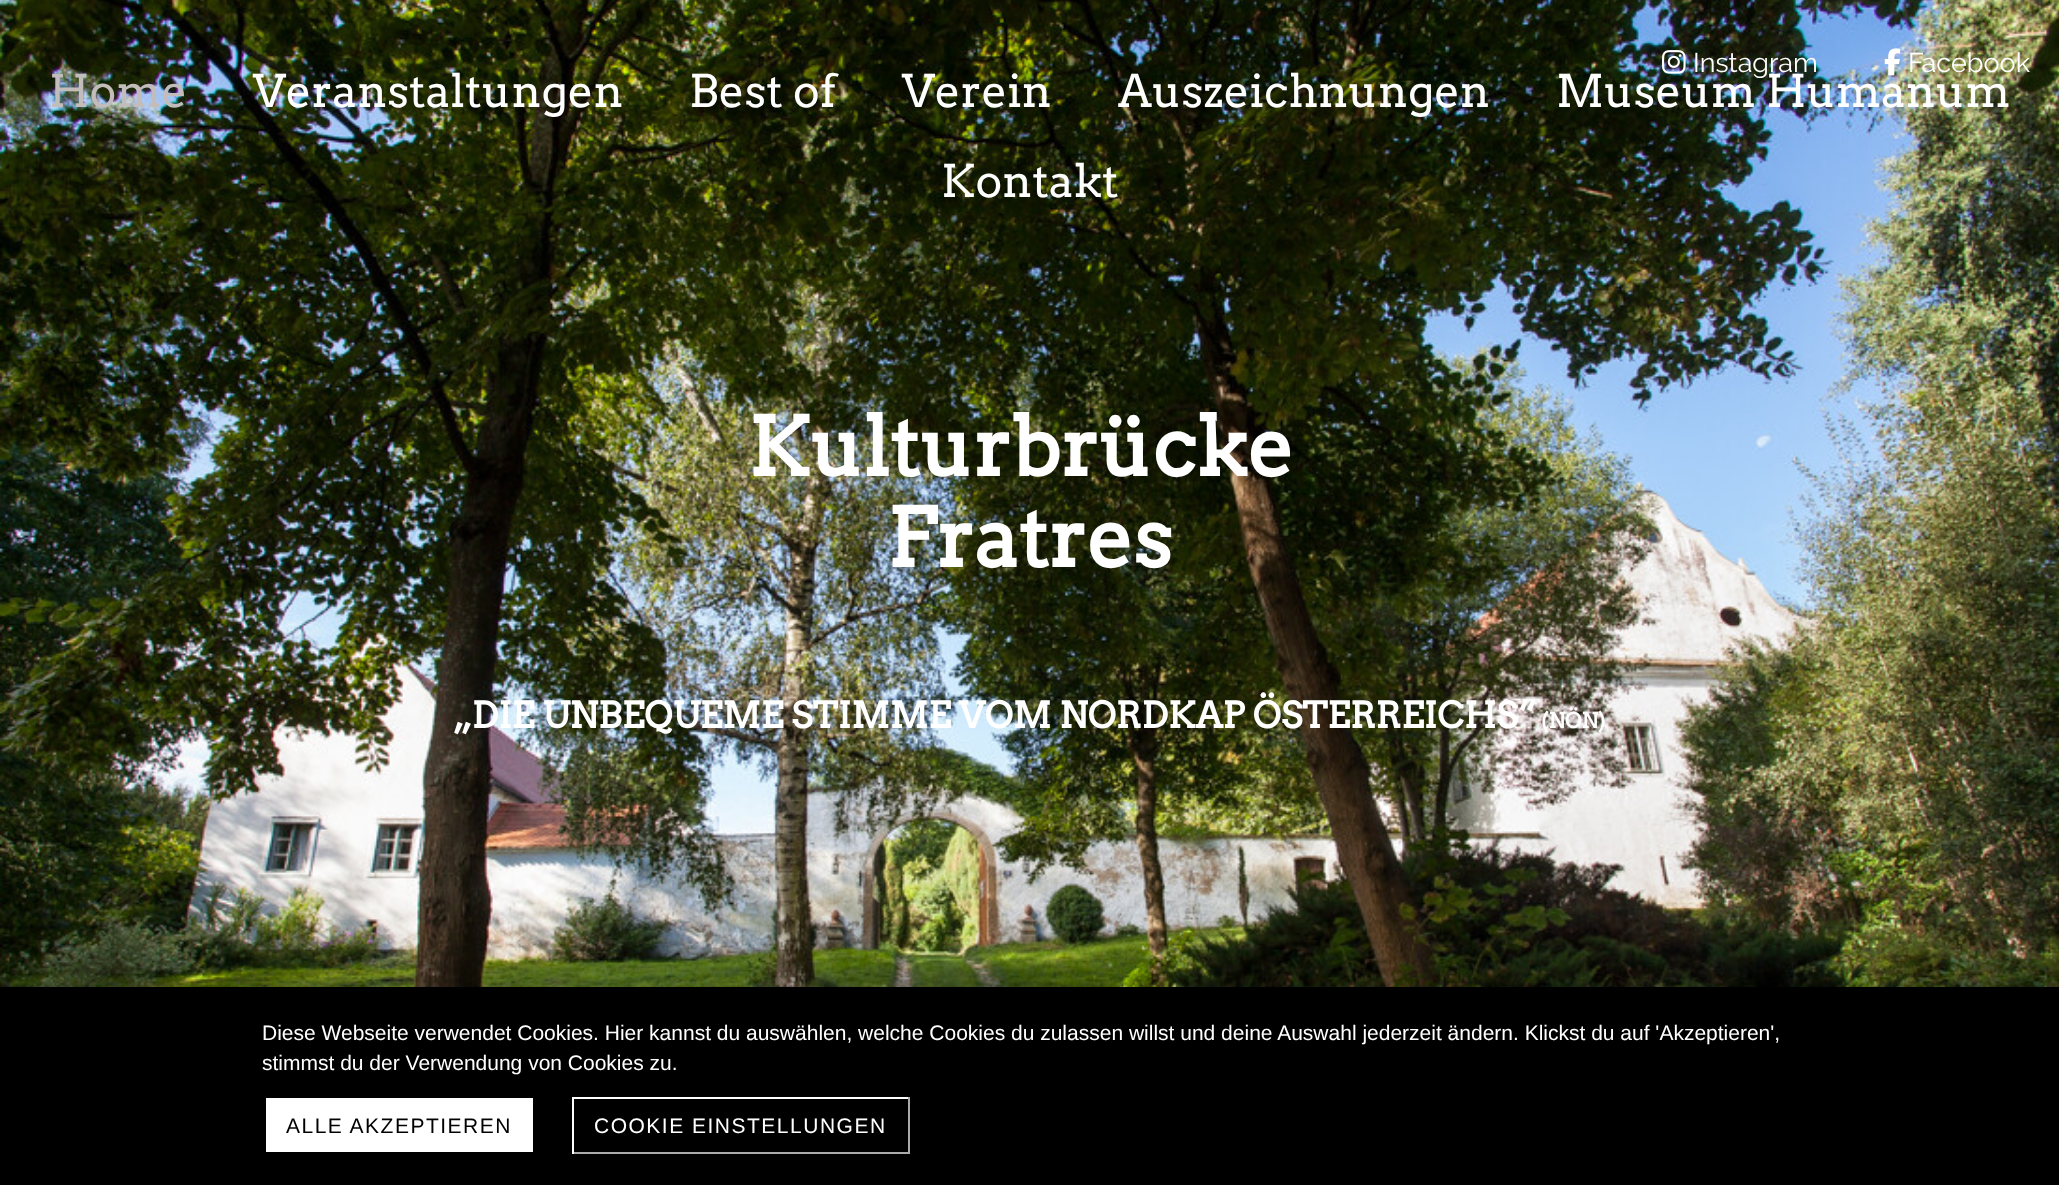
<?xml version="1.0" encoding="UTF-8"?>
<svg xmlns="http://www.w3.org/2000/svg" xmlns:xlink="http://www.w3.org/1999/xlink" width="2059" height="1185">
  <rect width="100%" height="100%" fill="#ffffff" />
  <image x="0" y="0" width="2059" height="987" xlink:href="image1.png" />
  <rect y="987" width="2059" height="198" fill="#000000" />
  <rect x="266" y="1098" width="267" height="54" fill="#ffffff" />
  <rect x="572" y="1097" width="337" height="2" fill="#ffffff" />
  <rect x="908" y="1097" width="2" height="57" fill="#aaaaaa" />
  <rect x="572" y="1152" width="337" height="2" fill="#aaaaaa" />
  <rect x="572" y="1097" width="2" height="57" fill="#ffffff" />
  <text x="1693" y="72" style="font-family: Raleway; font-size: 27px; fill: #ffffff">Instagram</text>
  <text x="1908" y="72" style="font-family: Raleway; font-size: 27px; fill: #ffffff">Facebook</text>
  <text x="49" y="107" style="font-family: Arvo; font-size: 45px; fill: #c2bdbb">Home</text>
  <text x="253" y="107" style="font-family: Arvo; font-size: 45px; fill: #ffffff">Veranstaltungen</text>
  <text x="689" y="107" style="font-family: Arvo; font-size: 45px; fill: #ffffff">Best of</text>
  <text x="902" y="107" style="font-family: Arvo; font-size: 45px; fill: #ffffff">Verein</text>
  <text x="1118" y="107" style="font-family: Arvo; font-size: 45px; fill: #ffffff">Auszeichnungen</text>
  <text x="1556" y="107" style="font-family: Arvo; font-size: 45px; fill: #ffffff">Museum Humanum</text>
  <image x="1884" y="48" width="17" height="28" xlink:href="image3.png" />
  <image x="1662" y="50" width="24" height="24" xlink:href="image2.png" />
  <text x="941" y="197" style="font-family: Arvo; font-size: 45px; fill: #ffffff">Kontakt</text>
  <text x="748" y="476" style="font-family: Arvo; font-size: 81px; font-weight: bold; fill: #ffffff">Kulturbrücke</text>
  <text x="887" y="567" style="font-family: Arvo; font-size: 81px; font-weight: bold; fill: #ffffff">Fratres</text>
  <text x="454" y="728" style="font-family: Arvo; font-size: 36px; font-weight: bold; fill: #ffffff">„DIE UNBEQUEME STIMME VOM NORDKAP ÖSTERREICHS“</text>
  <text x="1541" y="728" style="font-family: Arvo; font-size: 21px; font-weight: bold; fill: #ffffff">(NÖN)</text>
  <text x="262" y="1040" style="font-family: Liberation Sans; font-size: 21px; fill: #ffffff">Diese Webseite verwendet Cookies. Hier kannst du auswählen, welche Cookies du zulassen willst und deine Auswahl jederzeit ändern. Klickst du auf 'Akzeptieren',</text>
  <text x="262" y="1070" style="font-family: Liberation Sans; font-size: 21px; fill: #ffffff">stimmst du der Verwendung von Cookies zu.</text>
  <text x="286" y="1133" style="font-family: Liberation Sans; font-size: 21px; letter-spacing: 1.5px; fill: #000000">ALLE AKZEPTIEREN</text>
  <text x="594" y="1133" style="font-family: Liberation Sans; font-size: 21px; letter-spacing: 1.5px; fill: #ffffff">COOKIE EINSTELLUNGEN</text>
</svg>
